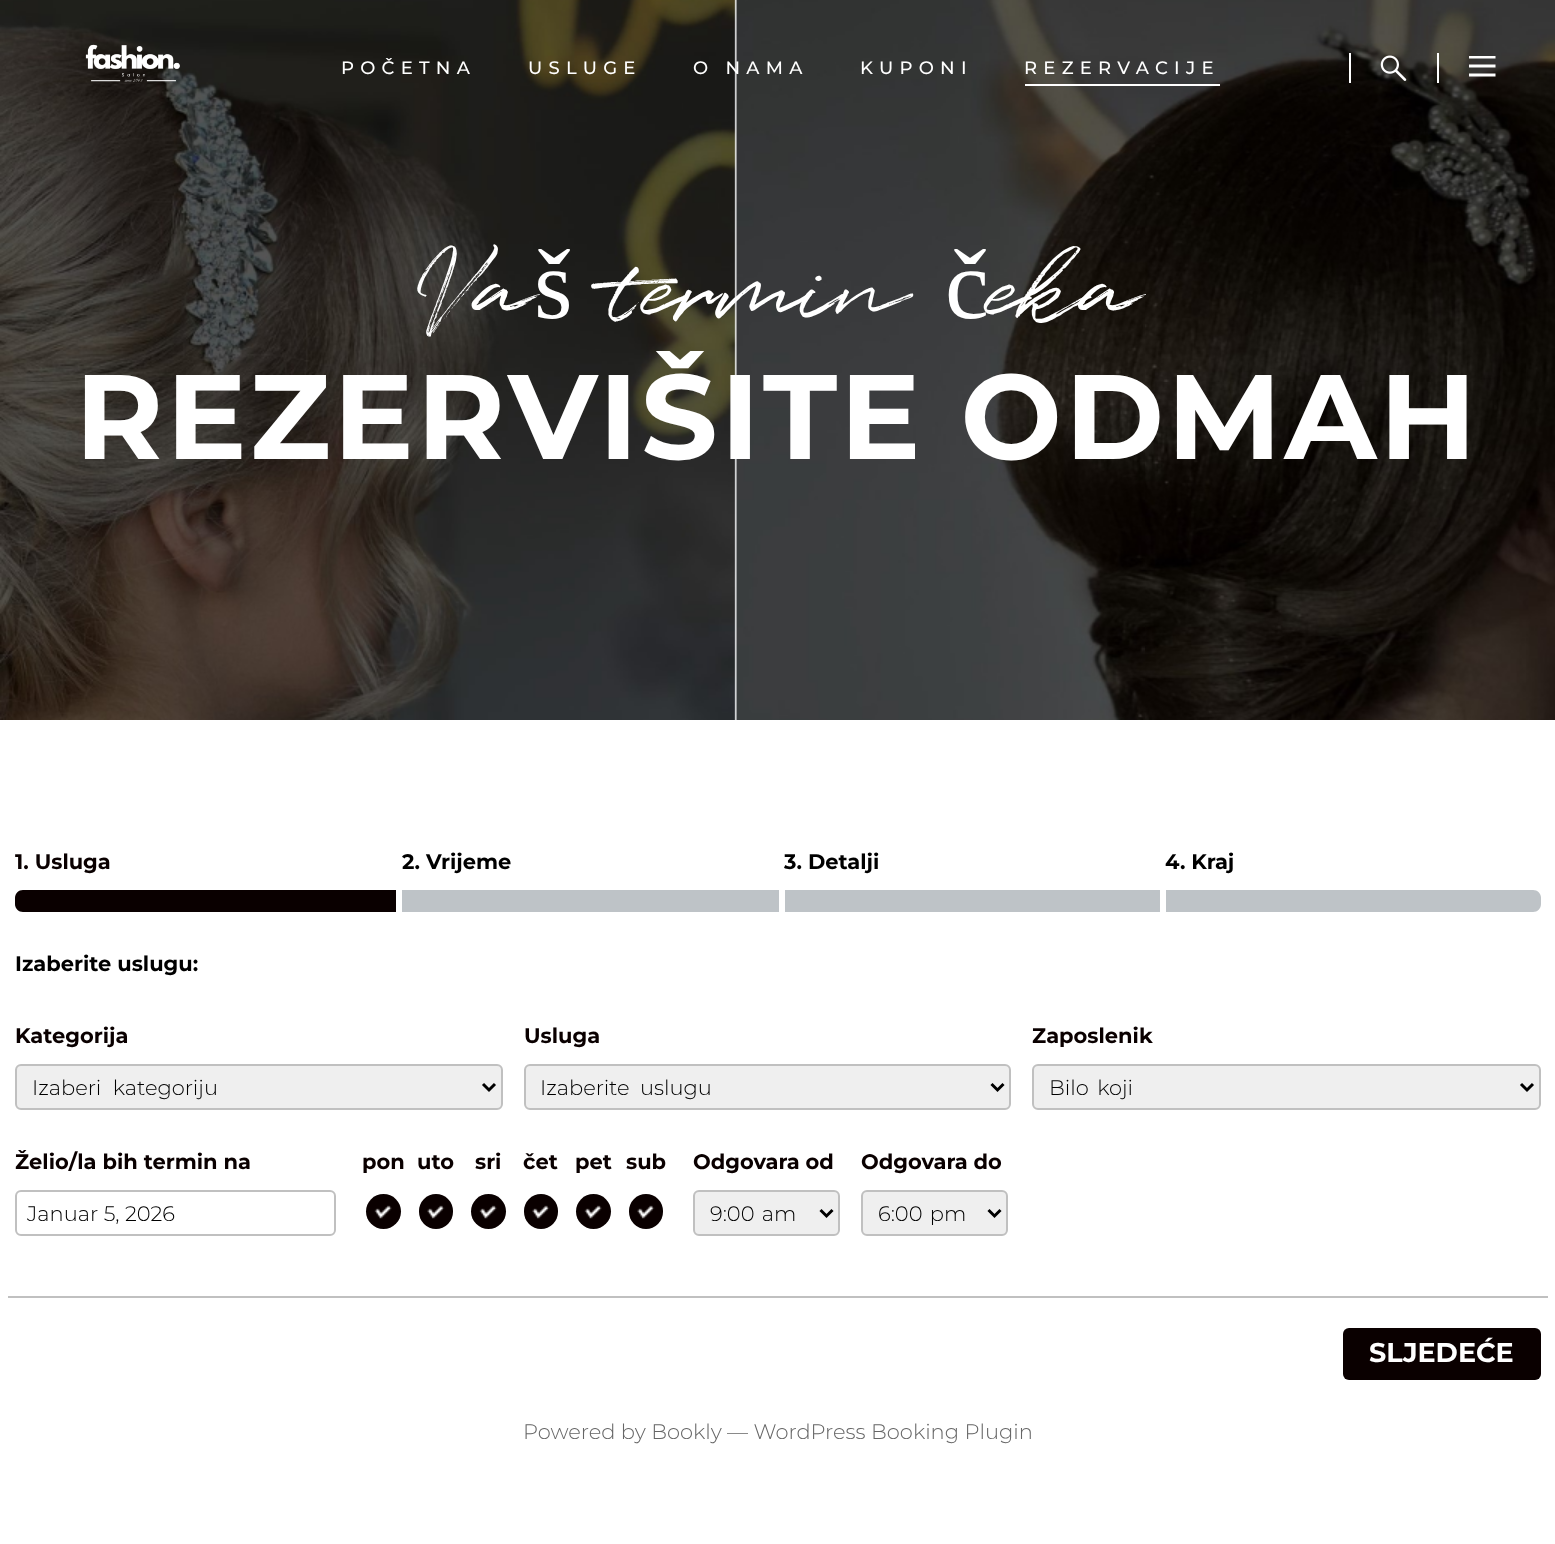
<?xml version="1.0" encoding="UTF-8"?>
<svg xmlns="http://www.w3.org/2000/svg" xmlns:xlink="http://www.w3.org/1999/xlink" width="1555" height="1544">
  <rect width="100%" height="100%" fill="#ffffff" />
  <rect x="734" width="3" height="720" fill="#f7f8f9" />
  <image x="0" y="0" width="1555" height="720" xlink:href="image4.png" />
  <image x="85" y="44" width="95" height="38" xlink:href="image1.png" />
  <rect x="1025" y="84" width="195" height="2" fill="#ffffff" />
  <rect x="1349" y="53" width="2" height="30" fill="#ffffff" />
  <image x="1380" y="55" width="27" height="26" xlink:href="image2.png" />
  <rect x="1437" y="53" width="2" height="30" fill="#ffffff" />
  <image x="1469" y="56" width="27" height="21" xlink:href="image3.png" />
  <path d="M 23 890 h 373 v 22 h -373 c -4.5 0 -8 -3.5 -8 -8 v -6 c 0 -4.5 3.5 -8 8 -8 z" fill="#0a0000" />
  <rect x="402" y="890" width="377" height="22" fill="#bec3c7" />
  <rect x="785" y="890" width="375" height="22" fill="#bec3c7" />
  <path d="M 1166 890 h 367 c 4.5 0 8 3.5 8 8 v 6 c 0 4.5 -3.5 8 -8 8 h -367 z" fill="#bec3c7" />
  <rect x="16" y="1065" width="486" height="44" rx="5" fill="#efefef" stroke="#c0c0c0" stroke-width="2" />
  <path d="M 483 1084 l 6 6 l 6 -6" fill="none" stroke="#000000" stroke-width="3" />
  <rect x="525" y="1065" width="485" height="44" rx="5" fill="#efefef" stroke="#c0c0c0" stroke-width="2" />
  <path d="M 991.5 1084 l 6 6 l 6 -6" fill="none" stroke="#000000" stroke-width="3" />
  <rect x="1033" y="1065" width="507" height="44" rx="5" fill="#efefef" stroke="#c0c0c0" stroke-width="2" />
  <path d="M 1521 1084 l 6 6 l 6 -6" fill="none" stroke="#000000" stroke-width="3" />
  <rect x="16" y="1191" width="319" height="44" rx="5" fill="none" stroke="#c0c0c0" stroke-width="2" />
  <circle cx="383.5" cy="1211.5" r="17.5" fill="#0a0000" />
  <image x="374" y="1205" width="18" height="14" xlink:href="image5.png" />
  <rect x="419" y="1194" width="34" height="35" rx="17" fill="#0a0000" />
  <image x="427" y="1205" width="18" height="14" xlink:href="image6.png" />
  <circle cx="488.5" cy="1211.5" r="17.5" fill="#0a0000" />
  <image x="479" y="1205" width="18" height="14" xlink:href="image7.png" />
  <rect x="524" y="1194" width="34" height="35" rx="17" fill="#0a0000" />
  <image x="532" y="1205" width="18" height="14" xlink:href="image8.png" />
  <circle cx="593.5" cy="1211.5" r="17.5" fill="#0a0000" />
  <image x="584" y="1205" width="18" height="14" xlink:href="image5.png" />
  <rect x="629" y="1194" width="34" height="35" rx="17" fill="#0a0000" />
  <image x="637" y="1205" width="18" height="14" xlink:href="image9.png" />
  <rect x="694" y="1191" width="145" height="44" rx="5" fill="#efefef" stroke="#c0c0c0" stroke-width="2" />
  <path d="M 820.5 1210 l 6 6 l 6 -6" fill="none" stroke="#000000" stroke-width="3" />
  <rect x="862" y="1191" width="145" height="44" rx="5" fill="#efefef" stroke="#c0c0c0" stroke-width="2" />
  <path d="M 988.5 1210 l 6 6 l 6 -6" fill="none" stroke="#000000" stroke-width="3" />
  <rect x="8" y="1296" width="1540" height="2" fill="#c0c0c0" />
  <rect x="1343" y="1328" width="198" height="52" rx="6" fill="#0a0000" />
  <text x="341" y="74" style="font-family: Montserrat; font-size: 18px; font-weight: 500; letter-spacing: 6.25px; fill: #ffffff">POČETNA</text>
  <text x="528" y="74" style="font-family: Montserrat; font-size: 18px; font-weight: 500; letter-spacing: 6.25px; fill: #ffffff">USLUGE</text>
  <text x="693" y="74" style="font-family: Montserrat; font-size: 18px; font-weight: 500; letter-spacing: 6.25px; fill: #ffffff">O NAMA</text>
  <text x="860" y="74" style="font-family: Montserrat; font-size: 18px; font-weight: 500; letter-spacing: 6.25px; fill: #ffffff">KUPONI</text>
  <text x="1024" y="74" style="font-family: Montserrat; font-size: 18px; font-weight: 500; letter-spacing: 6.25px; fill: #ffffff">REZERVACIJE</text>
  <text x="415" y="318" style="font-family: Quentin; font-size: 99px; fill: #ffffff">Va</text>
  <text x="534" y="318" style="font-family: Liberation Serif; font-size: 99px; fill: #ffffff">š</text>
  <text x="611" y="318" style="font-family: Quentin; font-size: 99px; fill: #ffffff">termin</text>
  <text x="945" y="318" style="font-family: Liberation Serif; font-size: 99px; fill: #ffffff">č</text>
  <text x="989" y="318" style="font-family: Quentin; font-size: 99px; fill: #ffffff">eka</text>
  <text x="75" y="459" style="font-family: Montserrat; font-size: 120px; font-weight: bold; letter-spacing: 3px; fill: #ffffff">REZERVIŠITE ODMAH</text>
  <text x="15" y="869" style="font-family: Montserrat; font-size: 21px; font-weight: bold; fill: #0a0000">1. Usluga</text>
  <text x="402" y="869" style="font-family: Montserrat; font-size: 21px; font-weight: bold; fill: #000000">2. Vrijeme</text>
  <text x="784" y="869" style="font-family: Montserrat; font-size: 21px; font-weight: bold; fill: #000000">3. Detalji</text>
  <text x="1165" y="869" style="font-family: Montserrat; font-size: 21px; font-weight: bold; fill: #000000">4. Kraj</text>
  <text x="15" y="971" style="font-family: Montserrat; font-size: 21px; font-weight: bold; fill: #000000">Izaberite uslugu:</text>
  <text x="15" y="1043" style="font-family: Montserrat; font-size: 21px; font-weight: bold; fill: #0a0000">Kategorija</text>
  <text x="32" y="1095" word-spacing="6" style="font-family: Montserrat; font-size: 21px; font-weight: 300; fill: #000000">Izaberi kategoriju</text>
  <text x="524" y="1043" style="font-family: Montserrat; font-size: 21px; font-weight: bold; fill: #0a0000">Usluga</text>
  <text x="540" y="1095" word-spacing="5" style="font-family: Montserrat; font-size: 21px; font-weight: 300; fill: #000000">Izaberite uslugu</text>
  <text x="1032" y="1043" style="font-family: Montserrat; font-size: 21px; font-weight: bold; fill: #0a0000">Zaposlenik</text>
  <text x="1049" y="1095" word-spacing="3" style="font-family: Montserrat; font-size: 21px; font-weight: 300; fill: #000000">Bilo koji</text>
  <text x="15" y="1169" style="font-family: Montserrat; font-size: 21px; font-weight: bold; fill: #0a0000">Želio/la bih termin na</text>
  <text x="27" y="1221" style="font-family: Montserrat; font-size: 21px; font-weight: 300; fill: #000000">Januar 5, 2026</text>
  <text x="362" y="1169" style="font-family: Montserrat; font-size: 21px; font-weight: bold; fill: #0a0000">pon</text>
  <text x="417" y="1169" style="font-family: Montserrat; font-size: 21px; font-weight: bold; fill: #0a0000">uto</text>
  <text x="475" y="1169" style="font-family: Montserrat; font-size: 21px; font-weight: bold; fill: #0a0000">sri</text>
  <text x="523" y="1169" style="font-family: Montserrat; font-size: 21px; font-weight: bold; fill: #0a0000">čet</text>
  <text x="575" y="1169" style="font-family: Montserrat; font-size: 21px; font-weight: bold; fill: #0a0000">pet</text>
  <text x="626" y="1169" style="font-family: Montserrat; font-size: 21px; font-weight: bold; fill: #0a0000">sub</text>
  <text x="693" y="1169" style="font-family: Montserrat; font-size: 21px; font-weight: bold; fill: #0a0000">Odgovara od</text>
  <text x="710" y="1221" word-spacing="2" style="font-family: Montserrat; font-size: 21px; font-weight: 300; fill: #000000">9:00 am</text>
  <text x="861" y="1169" style="font-family: Montserrat; font-size: 21px; font-weight: bold; fill: #0a0000">Odgovara do</text>
  <text x="878" y="1221" word-spacing="2" style="font-family: Montserrat; font-size: 21px; font-weight: 300; fill: #000000">6:00 pm</text>
  <text x="1369" y="1362" style="font-family: Montserrat; font-size: 27px; font-weight: bold; fill: #ffffff">SLJEDEĆE</text>
  <text x="523" y="1439" style="font-family: Montserrat; font-size: 21px; font-weight: 300; fill: #666666">Powered by Bookly — WordPress Booking Plugin</text>
</svg>
